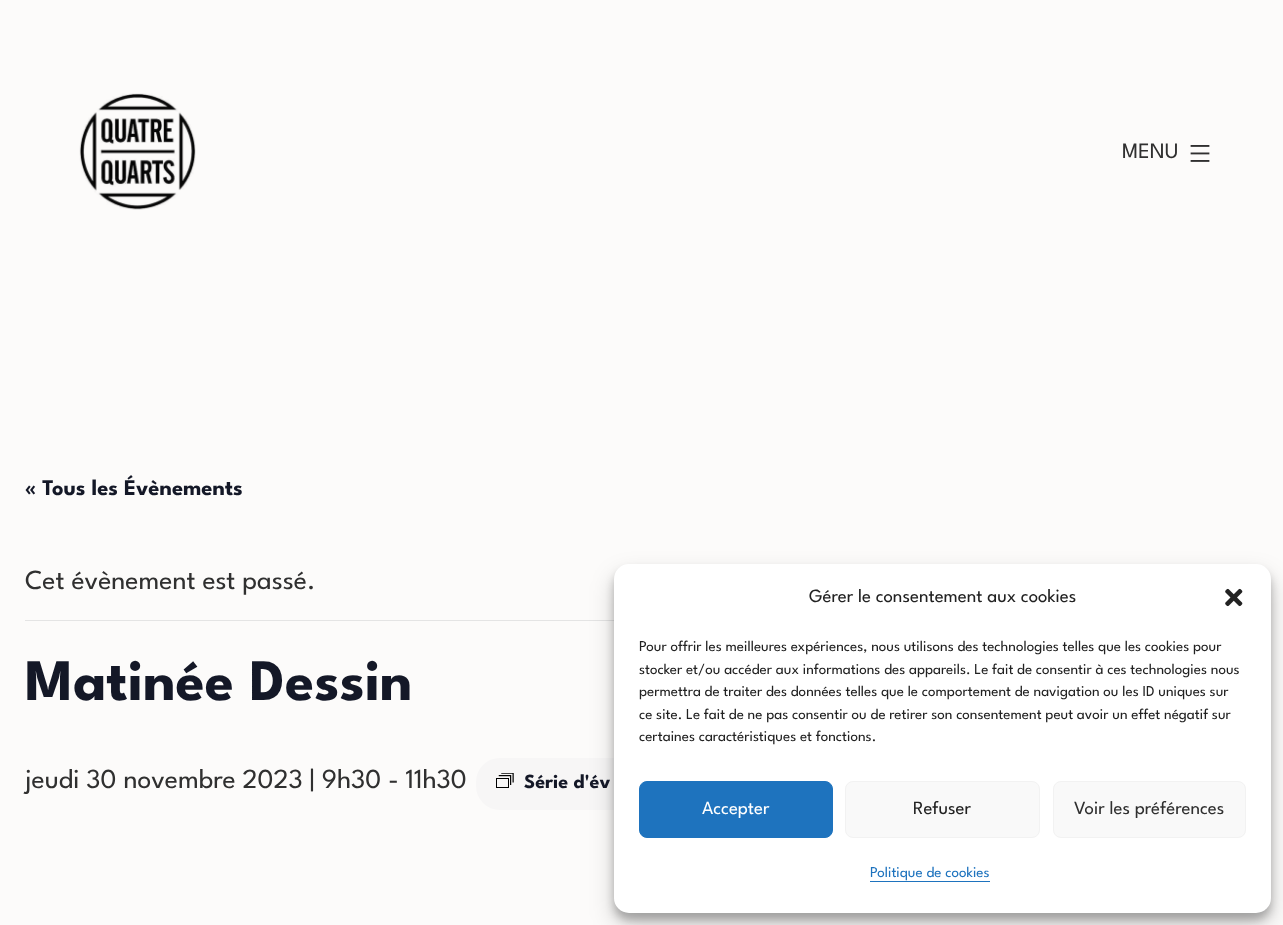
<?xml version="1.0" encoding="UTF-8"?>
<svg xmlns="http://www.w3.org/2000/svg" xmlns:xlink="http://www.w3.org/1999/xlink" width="1283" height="925">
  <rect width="100%" height="100%" fill="#fcfbfa" />
  <image x="79" y="93" width="117" height="117" xlink:href="image1.png" />
  <image x="1190" y="145" width="20" height="17" xlink:href="image2.png" />
  <rect x="25" y="620" width="589" height="1" fill="#e4e4e4" />
  <rect x="476" y="758" width="319" height="52" rx="24" fill="#f7f6f6" />
  <image x="496" y="773" width="18" height="15" xlink:href="image3.png" />
  <rect x="614" y="571" width="657" height="349" rx="15" fill="#000000" fill-opacity="0.23" filter="blur(4px)" />
  <rect x="614" y="576" width="657" height="349" rx="15" fill="#000000" fill-opacity="0.19" filter="blur(12.5px)" />
  <rect x="614" y="564" width="657" height="349" rx="15" fill="#ffffff" />
  <image x="1225" y="588" width="18" height="19" xlink:href="image4.png" />
  <rect x="639.5" y="781.5" width="193" height="56" rx="7.5" fill="#1e73be" stroke="#1e73be" />
  <rect x="845.5" y="781.5" width="194" height="56" rx="7.5" fill="#f9f9f9" stroke="#f2f2f2" />
  <rect x="1053.5" y="781.5" width="192" height="56" rx="7.5" fill="#f9f9f9" stroke="#f2f2f2" />
  <rect x="870" y="881" width="120" height="1" fill="#1e73be" />
  <text x="1122" y="158" style="font-family: League Spartan; font-size: 22px; fill: #303030">MENU</text>
  <text x="25" y="495" style="font-family: League Spartan; font-size: 22.5px; font-weight: bold; fill: #141827">« Tous les Évènements</text>
  <text x="25" y="589" style="font-family: League Spartan; font-size: 27.5px; fill: #303030">Cet évènement est passé.</text>
  <text x="25" y="700" style="font-family: League Spartan; font-size: 58.75px; font-weight: bold; fill: #141827">Matinée Dessin</text>
  <text x="25" y="788" style="font-family: League Spartan; font-size: 27.5px; fill: #303030">jeudi 30 novembre 2023 | 9h30 - 11h30</text>
  <text x="524" y="788" style="font-family: League Spartan; font-size: 20px; font-weight: bold; fill: #141827">Série d'év</text>
  <text x="809" y="602" style="font-family: League Spartan; font-size: 18.75px; fill: #222222">Gérer le consentement aux cookies</text>
  <text x="639" y="651" style="font-family: League Spartan; font-size: 15px; fill: #222222">Pour offrir les meilleures expériences, nous utilisons des technologies telles que les cookies pour</text>
  <text x="639" y="674" style="font-family: League Spartan; font-size: 15px; fill: #222222">stocker et/ou accéder aux informations des appareils. Le fait de consentir à ces technologies nous</text>
  <text x="639" y="696" style="font-family: League Spartan; font-size: 15px; fill: #222222">permettra de traiter des données telles que le comportement de navigation ou les ID uniques sur</text>
  <text x="639" y="719" style="font-family: League Spartan; font-size: 15px; fill: #222222">ce site. Le fait de ne pas consentir ou de retirer son consentement peut avoir un effet négatif sur</text>
  <text x="639" y="741" style="font-family: League Spartan; font-size: 15px; fill: #222222">certaines caractéristiques et fonctions.</text>
  <text x="702" y="814" style="font-family: League Spartan; font-size: 18.75px; fill: #ffffff">Accepter</text>
  <text x="913" y="814" style="font-family: League Spartan; font-size: 18.75px; fill: #222222">Refuser</text>
  <text x="1074" y="814" style="font-family: League Spartan; font-size: 18.75px; fill: #303030">Voir les préférences</text>
  <text x="870" y="877" style="font-family: League Spartan; font-size: 15px; fill: #1e73be">Politique de cookies</text>
</svg>
